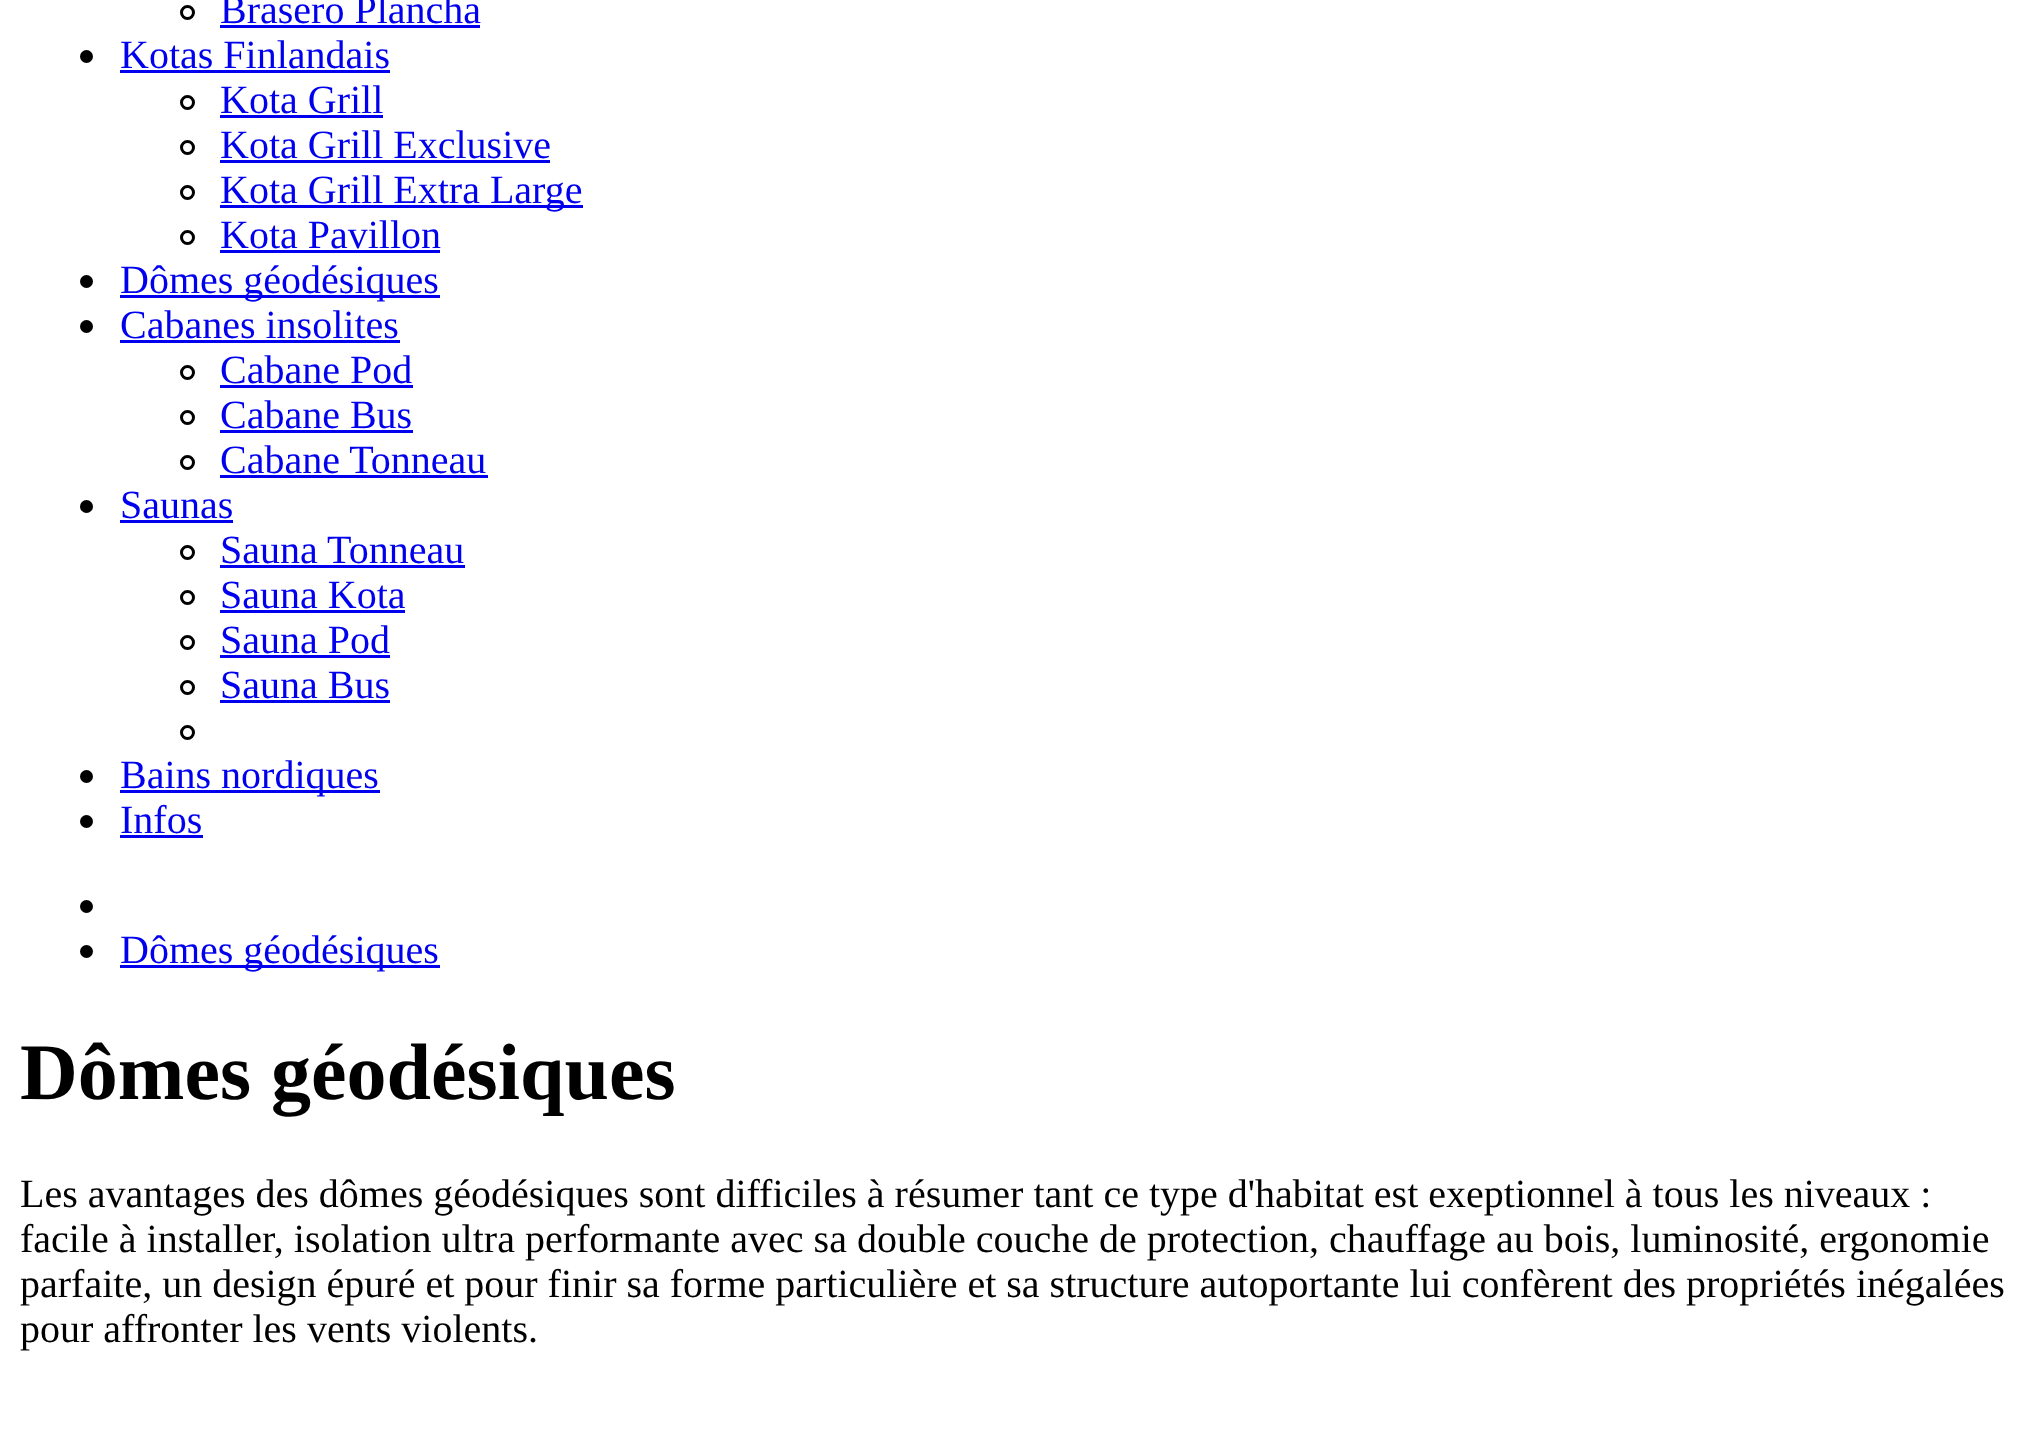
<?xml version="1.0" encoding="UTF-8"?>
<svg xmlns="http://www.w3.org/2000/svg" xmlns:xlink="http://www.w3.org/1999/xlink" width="2025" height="1435">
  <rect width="100%" height="100%" fill="#ffffff" />
  <circle cx="187.5" cy="12.5" r="6" fill="none" stroke="#000000" stroke-width="3" />
  <rect x="220" y="25" width="260" height="3" fill="#0000ee" />
  <circle cx="86.5" cy="56.5" r="6.5" fill="#000000" />
  <rect x="120" y="70" width="270" height="3" fill="#0000ee" />
  <circle cx="187.5" cy="102.5" r="6" fill="none" stroke="#000000" stroke-width="3" />
  <rect x="220" y="115" width="163" height="3" fill="#0000ee" />
  <circle cx="187.5" cy="147.5" r="6" fill="none" stroke="#000000" stroke-width="3" />
  <rect x="220" y="160" width="330" height="3" fill="#0000ee" />
  <circle cx="187.5" cy="192.5" r="6" fill="none" stroke="#000000" stroke-width="3" />
  <rect x="220" y="205" width="363" height="3" fill="#0000ee" />
  <circle cx="187.5" cy="237.5" r="6" fill="none" stroke="#000000" stroke-width="3" />
  <rect x="220" y="250" width="220" height="3" fill="#0000ee" />
  <circle cx="86.5" cy="281.5" r="6.5" fill="#000000" />
  <rect x="120" y="295" width="320" height="3" fill="#0000ee" />
  <circle cx="86.5" cy="326.5" r="6.5" fill="#000000" />
  <rect x="120" y="340" width="280" height="3" fill="#0000ee" />
  <circle cx="187.5" cy="372.5" r="6" fill="none" stroke="#000000" stroke-width="3" />
  <rect x="220" y="385" width="193" height="3" fill="#0000ee" />
  <circle cx="187.5" cy="417.5" r="6" fill="none" stroke="#000000" stroke-width="3" />
  <rect x="220" y="430" width="193" height="3" fill="#0000ee" />
  <circle cx="187.5" cy="462.5" r="6" fill="none" stroke="#000000" stroke-width="3" />
  <rect x="220" y="475" width="268" height="3" fill="#0000ee" />
  <circle cx="86.5" cy="506.5" r="6.5" fill="#000000" />
  <rect x="120" y="520" width="113" height="3" fill="#0000ee" />
  <circle cx="187.5" cy="552.5" r="6" fill="none" stroke="#000000" stroke-width="3" />
  <rect x="220" y="565" width="245" height="3" fill="#0000ee" />
  <circle cx="187.5" cy="597.5" r="6" fill="none" stroke="#000000" stroke-width="3" />
  <rect x="220" y="610" width="185" height="3" fill="#0000ee" />
  <circle cx="187.5" cy="642.5" r="6" fill="none" stroke="#000000" stroke-width="3" />
  <rect x="220" y="655" width="170" height="3" fill="#0000ee" />
  <circle cx="187.5" cy="687.5" r="6" fill="none" stroke="#000000" stroke-width="3" />
  <rect x="220" y="700" width="170" height="3" fill="#0000ee" />
  <circle cx="187.5" cy="732.5" r="6" fill="none" stroke="#000000" stroke-width="3" />
  <circle cx="86.5" cy="776.5" r="6.5" fill="#000000" />
  <rect x="120" y="790" width="260" height="3" fill="#0000ee" />
  <circle cx="86.5" cy="821.5" r="6.5" fill="#000000" />
  <rect x="120" y="835" width="83" height="3" fill="#0000ee" />
  <circle cx="86.5" cy="906.5" r="6.5" fill="#000000" />
  <circle cx="86.5" cy="951.5" r="6.5" fill="#000000" />
  <rect x="120" y="965" width="320" height="3" fill="#0000ee" />
  <text x="220" y="23" style="font-family: Liberation Serif; font-size: 40px; fill: #0000ee">Brasero Plancha</text>
  <text x="120" y="68" style="font-family: Liberation Serif; font-size: 40px; fill: #0000ee">Kotas Finlandais</text>
  <text x="220" y="113" style="font-family: Liberation Serif; font-size: 40px; fill: #0000ee">Kota Grill</text>
  <text x="220" y="158" style="font-family: Liberation Serif; font-size: 40px; fill: #0000ee">Kota Grill Exclusive</text>
  <text x="220" y="203" style="font-family: Liberation Serif; font-size: 40px; fill: #0000ee">Kota Grill Extra Large</text>
  <text x="220" y="248" style="font-family: Liberation Serif; font-size: 40px; fill: #0000ee">Kota Pavillon</text>
  <text x="120" y="293" style="font-family: Liberation Serif; font-size: 40px; fill: #0000ee">Dômes géodésiques</text>
  <text x="120" y="338" style="font-family: Liberation Serif; font-size: 40px; fill: #0000ee">Cabanes insolites</text>
  <text x="220" y="383" style="font-family: Liberation Serif; font-size: 40px; fill: #0000ee">Cabane Pod</text>
  <text x="220" y="428" style="font-family: Liberation Serif; font-size: 40px; fill: #0000ee">Cabane Bus</text>
  <text x="220" y="473" style="font-family: Liberation Serif; font-size: 40px; fill: #0000ee">Cabane Tonneau</text>
  <text x="120" y="518" style="font-family: Liberation Serif; font-size: 40px; fill: #0000ee">Saunas</text>
  <text x="220" y="563" style="font-family: Liberation Serif; font-size: 40px; fill: #0000ee">Sauna Tonneau</text>
  <text x="220" y="608" style="font-family: Liberation Serif; font-size: 40px; fill: #0000ee">Sauna Kota</text>
  <text x="220" y="653" style="font-family: Liberation Serif; font-size: 40px; fill: #0000ee">Sauna Pod</text>
  <text x="220" y="698" style="font-family: Liberation Serif; font-size: 40px; fill: #0000ee">Sauna Bus</text>
  <text x="120" y="788" style="font-family: Liberation Serif; font-size: 40px; fill: #0000ee">Bains nordiques</text>
  <text x="120" y="833" style="font-family: Liberation Serif; font-size: 40px; fill: #0000ee">Infos</text>
  <text x="120" y="963" style="font-family: Liberation Serif; font-size: 40px; fill: #0000ee">Dômes géodésiques</text>
  <text x="20" y="1099" style="font-family: Liberation Serif; font-size: 80px; font-weight: bold; fill: #000000">Dômes géodésiques</text>
  <text x="20" y="1207" style="font-family: Liberation Serif; font-size: 40px; fill: #000000">Les avantages des dômes géodésiques sont difficiles à résumer tant ce type d'habitat est exeptionnel à tous les niveaux :</text>
  <text x="20" y="1252" style="font-family: Liberation Serif; font-size: 40px; fill: #000000">facile à installer, isolation ultra performante avec sa double couche de protection, chauffage au bois, luminosité, ergonomie</text>
  <text x="20" y="1297" style="font-family: Liberation Serif; font-size: 40px; fill: #000000">parfaite, un design épuré et pour finir sa forme particulière et sa structure autoportante lui confèrent des propriétés inégalées</text>
  <text x="20" y="1342" style="font-family: Liberation Serif; font-size: 40px; fill: #000000">pour affronter les vents violents.</text>
</svg>
